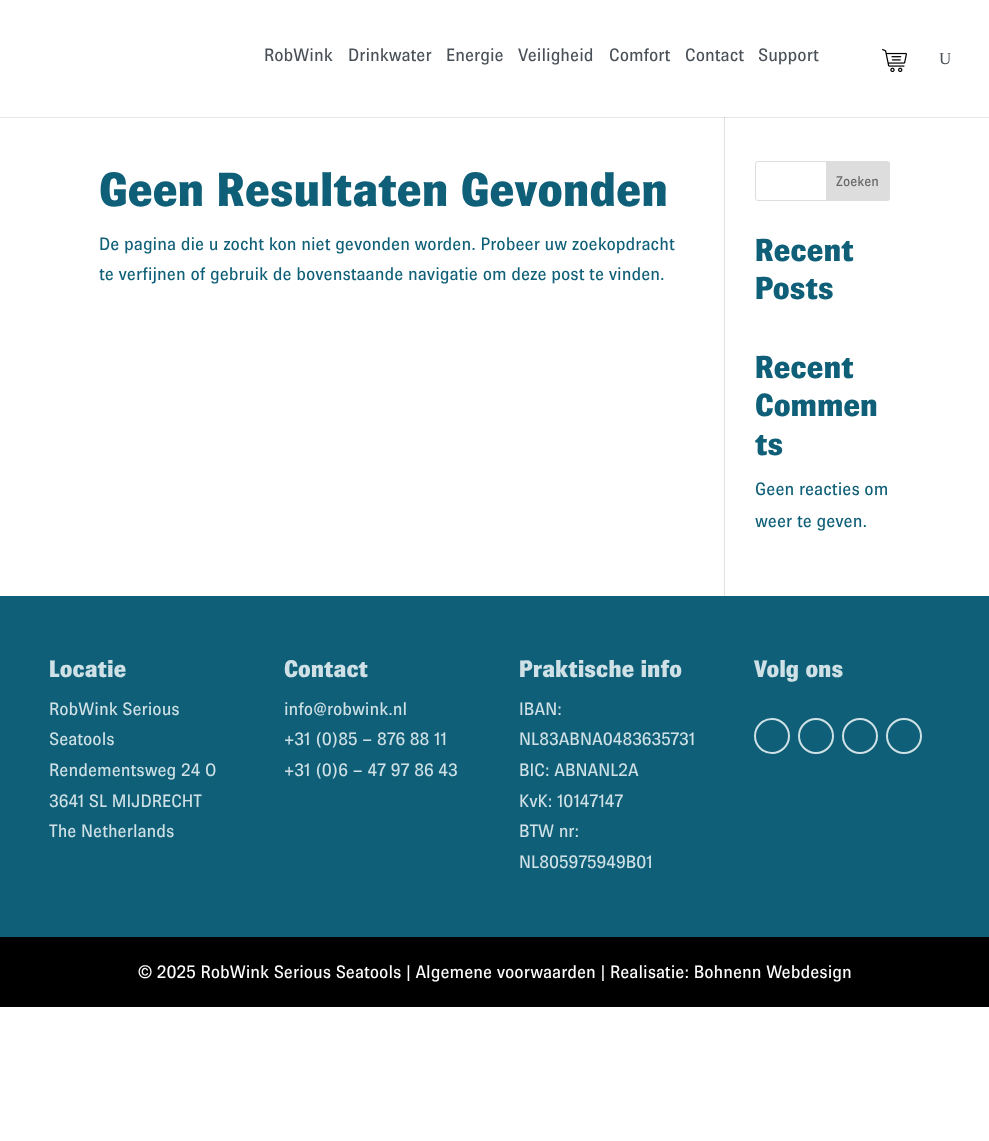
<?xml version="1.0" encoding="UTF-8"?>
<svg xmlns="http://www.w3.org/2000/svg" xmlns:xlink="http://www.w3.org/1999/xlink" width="989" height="1141">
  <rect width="100%" height="100%" fill="#ffffff" />
  <rect y="117" width="989" height="1" fill="#e6e6e6" />
  <image x="882" y="49" width="25" height="24" xlink:href="image1.png" />
  <rect x="724" y="118" width="1" height="478" fill="#e2e2e2" />
  <rect x="724" y="117" width="1" height="1" fill="#cbcbcb" />
  <rect x="755.5" y="161.5" width="134" height="39" rx="2.5" fill="none" stroke="#dddddd" />
  <path d="M 826.5 161.5 h 60.5 c 1.5 0 2.5 1 2.5 2.5 v 34 c 0 1.5 -1 2.5 -2.5 2.5 h -60.5 z" fill="#dddddd" stroke="#dddddd" />
  <rect y="596" width="989" height="341" fill="#0e5f77" />
  <circle cx="772" cy="736" r="17" fill="none" stroke="#cfe1e6" stroke-width="2" />
  <circle cx="816" cy="736" r="17" fill="none" stroke="#cfe1e6" stroke-width="2" />
  <circle cx="860" cy="736" r="17" fill="none" stroke="#cfe1e6" stroke-width="2" />
  <circle cx="904" cy="736" r="17" fill="none" stroke="#cfe1e6" stroke-width="2" />
  <rect y="937" width="989" height="70" fill="#000000" />
  <text x="264" y="61" style="font-family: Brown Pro; font-size: 18px; font-weight: 500; fill: #495057">RobWink</text>
  <text x="348" y="61" style="font-family: Brown Pro; font-size: 18px; font-weight: 500; fill: #495057">Drinkwater</text>
  <text x="446" y="61" style="font-family: Brown Pro; font-size: 18px; font-weight: 500; fill: #495057">Energie</text>
  <text x="518" y="61" style="font-family: Brown Pro; font-size: 18px; font-weight: 500; fill: #495057">Veiligheid</text>
  <text x="609" y="61" style="font-family: Brown Pro; font-size: 18px; font-weight: 500; fill: #495057">Comfort</text>
  <text x="685" y="61" style="font-family: Brown Pro; font-size: 18px; font-weight: 500; fill: #495057">Contact</text>
  <text x="758" y="61" style="font-family: Brown Pro; font-size: 18px; font-weight: 500; fill: #495057">Support</text>
  <text x="939" y="64" style="font-family: Liberation Serif; font-size: 17px; fill: #495057">U</text>
  <text x="99" y="206" style="font-family: Brown Pro; font-size: 48px; font-weight: 800; fill: #0e5f77">Geen Resultaten Gevonden</text>
  <text x="99" y="250" style="font-family: Brown Pro; font-size: 18px; font-weight: 500; fill: #0e5f77">De pagina die u zocht kon niet gevonden worden. Probeer uw zoekopdracht</text>
  <text x="99" y="280" style="font-family: Brown Pro; font-size: 18px; font-weight: 500; fill: #0e5f77">te verfijnen of gebruik de bovenstaande navigatie om deze post te vinden.</text>
  <text x="836" y="186" style="font-family: Brown Pro; font-size: 14px; font-weight: 500; fill: #666666">Zoeken</text>
  <text x="755" y="261" style="font-family: Brown Pro; font-size: 32px; font-weight: 800; fill: #0e5f77">Recent</text>
  <text x="755" y="299" style="font-family: Brown Pro; font-size: 32px; font-weight: 800; fill: #0e5f77">Posts</text>
  <text x="755" y="378" style="font-family: Brown Pro; font-size: 32px; font-weight: 800; fill: #0e5f77">Recent</text>
  <text x="755" y="416" style="font-family: Brown Pro; font-size: 32px; font-weight: 800; fill: #0e5f77">Commen</text>
  <text x="755" y="455" style="font-family: Brown Pro; font-size: 32px; font-weight: 800; fill: #0e5f77">ts</text>
  <text x="755" y="495" style="font-family: Brown Pro; font-size: 18px; font-weight: 500; fill: #0e5f77">Geen reacties om</text>
  <text x="755" y="527" style="font-family: Brown Pro; font-size: 18px; font-weight: 500; fill: #0e5f77">weer te geven.</text>
  <text x="49" y="677" style="font-family: Brown Pro; font-size: 24px; font-weight: 800; fill: #cfe1e6">Locatie</text>
  <text x="49" y="715" style="font-family: Brown Pro; font-size: 18px; font-weight: 500; fill: #cfe1e6">RobWink Serious</text>
  <text x="49" y="745" style="font-family: Brown Pro; font-size: 18px; font-weight: 500; fill: #cfe1e6">Seatools</text>
  <text x="49" y="776" style="font-family: Brown Pro; font-size: 18px; font-weight: 500; fill: #cfe1e6">Rendementsweg 24 O</text>
  <text x="49" y="807" style="font-family: Brown Pro; font-size: 18px; font-weight: 500; fill: #cfe1e6">3641 SL MIJDRECHT</text>
  <text x="49" y="837" style="font-family: Brown Pro; font-size: 18px; font-weight: 500; fill: #cfe1e6">The Netherlands</text>
  <text x="284" y="677" style="font-family: Brown Pro; font-size: 24px; font-weight: 800; fill: #cfe1e6">Contact</text>
  <text x="284" y="715" style="font-family: Brown Pro; font-size: 18px; font-weight: 500; fill: #cfe1e6">info@robwink.nl</text>
  <text x="284" y="745" style="font-family: Brown Pro; font-size: 18px; font-weight: 500; fill: #cfe1e6">+31 (0)85 – 876 88 11</text>
  <text x="284" y="776" style="font-family: Brown Pro; font-size: 18px; font-weight: 500; fill: #cfe1e6">+31 (0)6 – 47 97 86 43</text>
  <text x="519" y="677" style="font-family: Brown Pro; font-size: 24px; font-weight: 800; fill: #cfe1e6">Praktische info</text>
  <text x="519" y="715" style="font-family: Brown Pro; font-size: 18px; font-weight: 500; fill: #cfe1e6">IBAN:</text>
  <text x="519" y="745" style="font-family: Brown Pro; font-size: 18px; font-weight: 500; fill: #cfe1e6">NL83ABNA0483635731</text>
  <text x="519" y="776" style="font-family: Brown Pro; font-size: 18px; font-weight: 500; fill: #cfe1e6">BIC: ABNANL2A</text>
  <text x="519" y="807" style="font-family: Brown Pro; font-size: 18px; font-weight: 500; fill: #cfe1e6">KvK: 10147147</text>
  <text x="519" y="837" style="font-family: Brown Pro; font-size: 18px; font-weight: 500; fill: #cfe1e6">BTW nr:</text>
  <text x="519" y="868" style="font-family: Brown Pro; font-size: 18px; font-weight: 500; fill: #cfe1e6">NL805975949B01</text>
  <text x="754" y="677" style="font-family: Brown Pro; font-size: 24px; font-weight: 800; fill: #cfe1e6">Volg ons</text>
  <text x="138" y="978" style="font-family: Brown Pro; font-size: 18px; font-weight: 500; fill: #ffffff">© 2025 RobWink Serious Seatools | Algemene voorwaarden | Realisatie: Bohnenn Webdesign</text>
</svg>
